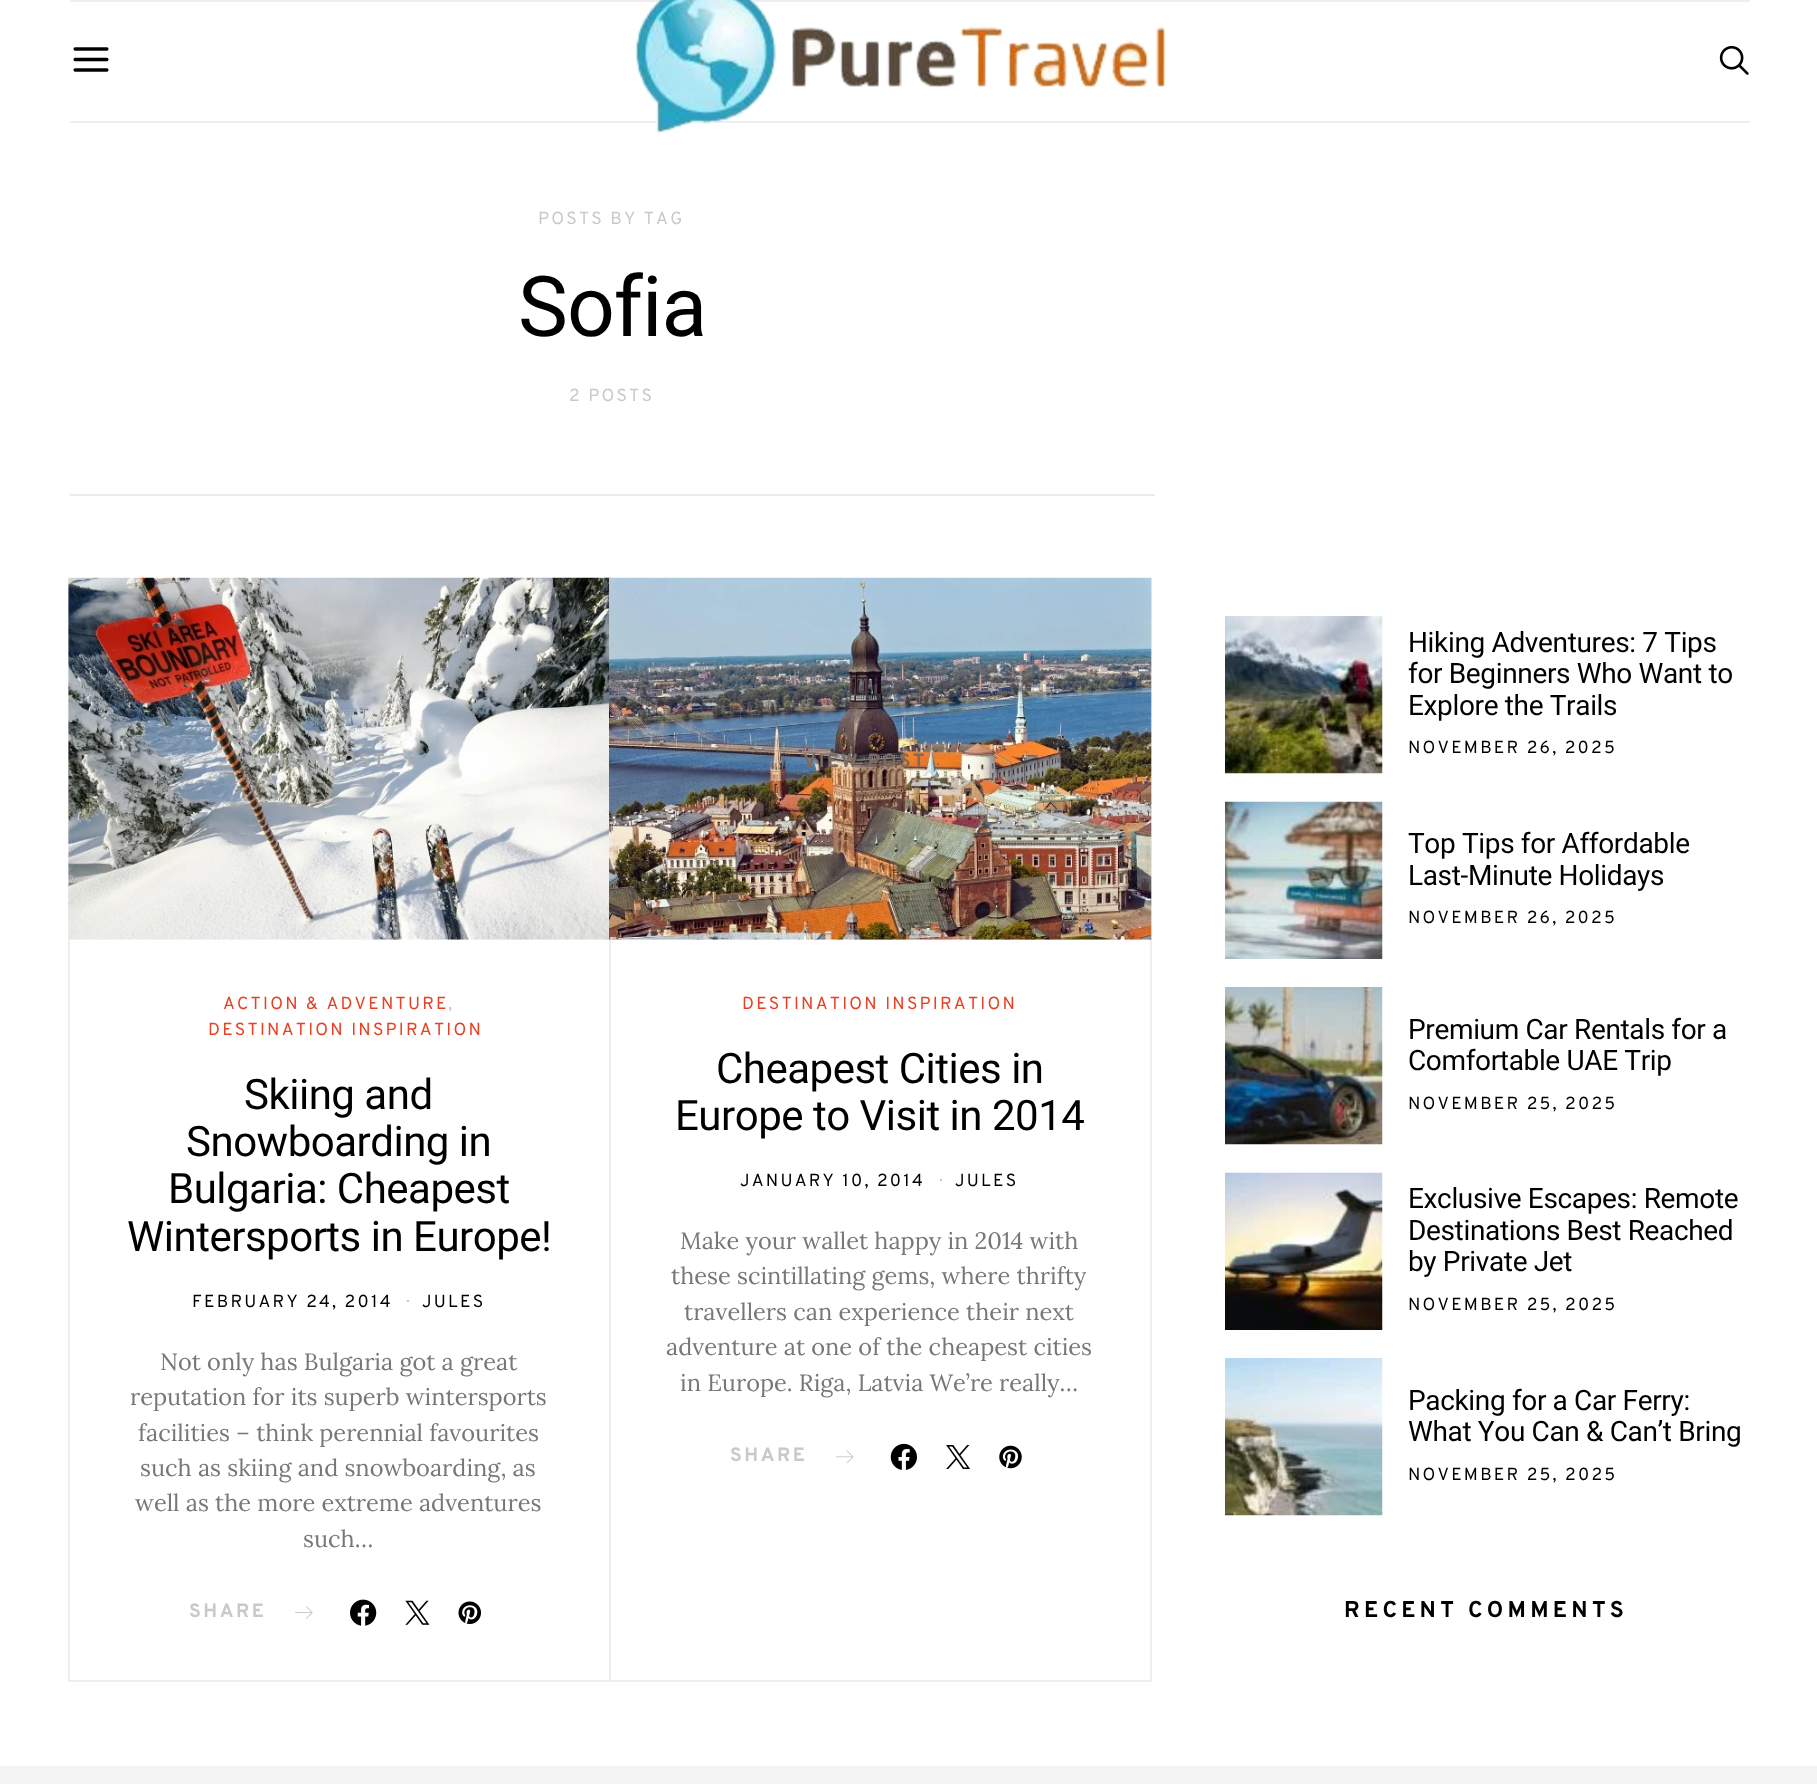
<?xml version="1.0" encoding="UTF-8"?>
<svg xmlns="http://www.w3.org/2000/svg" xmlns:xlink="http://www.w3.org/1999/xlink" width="1817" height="1784">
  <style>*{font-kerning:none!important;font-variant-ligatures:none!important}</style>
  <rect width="100%" height="100%" fill="#ffffff" />
  <rect x="70" width="1680" height="2" fill="#eeeeee" />
  <rect x="70" y="121" width="1680" height="2" fill="#eeeeee" />
  <image x="73" y="47" width="36" height="25" xlink:href="image1.png" />
  <image x="635" y="0" width="531" height="134" xlink:href="image2.png" />
  <image x="1719" y="45" width="30" height="30" xlink:href="image3.png" />
  <rect x="70" y="494" width="1085" height="2" fill="#e9ecef" />
  <rect x="69" y="579" width="541" height="1102" fill="none" stroke="#eeeeee" stroke-width="2" />
  <image x="68" y="577" width="543" height="363" xlink:href="image4.png" />
  <image x="295" y="1606" width="18" height="13" xlink:href="image5.png" />
  <image x="350" y="1599" width="27" height="27" xlink:href="image6.png" />
  <image x="405" y="1600" width="25" height="25" xlink:href="image7.png" />
  <image x="458" y="1601" width="23" height="23" xlink:href="image8.png" />
  <rect x="610" y="579" width="541" height="1102" fill="none" stroke="#eeeeee" stroke-width="2" />
  <image x="609" y="577" width="543" height="363" xlink:href="image9.png" />
  <image x="835" y="1450" width="19" height="13" xlink:href="image10.png" />
  <image x="890" y="1443" width="27" height="27" xlink:href="image11.png" />
  <image x="946" y="1445" width="24" height="24" xlink:href="image12.png" />
  <image x="999" y="1445" width="23" height="24" xlink:href="image13.png" />
  <image x="1225" y="616" width="158" height="158" xlink:href="image14.png" />
  <image x="1225" y="801" width="158" height="158" xlink:href="image15.png" />
  <image x="1225" y="987" width="158" height="158" xlink:href="image16.png" />
  <image x="1225" y="1172" width="158" height="158" xlink:href="image17.png" />
  <image x="1225" y="1358" width="158" height="158" xlink:href="image18.png" />
  <rect y="1766" width="1817" height="18" fill="#f4f4f4" />
  <text x="538" y="224" style="font-family: Overpass; font-size: 17.5px; letter-spacing: 2.2px; fill: #c9c9c9">POSTS BY TAG</text>
  <text x="518" y="336" style="font-family: Roboto; font-size: 84px; letter-spacing: -1px; fill: #000000">Sofia</text>
  <text x="569" y="401" style="font-family: Overpass; font-size: 17.5px; letter-spacing: 2.2px; fill: #c9c9c9">2 POSTS</text>
  <text x="263" y="767" style="font-family: Overpass; font-size: 19.25px; font-weight: bold; letter-spacing: 2.5px; fill: #a8adac">VIEW POST</text>
  <text x="223" y="1009" style="font-family: Overpass; font-size: 17.5px; letter-spacing: 2.2px; fill: #e84024">ACTION &amp; ADVENTURE</text>
  <text x="448" y="1009" style="font-family: Overpass; font-size: 17.5px; letter-spacing: 2.2px; fill: #c9c9c9">,</text>
  <text x="208" y="1035" style="font-family: Overpass; font-size: 17.5px; letter-spacing: 2.2px; fill: #e84024">DESTINATION INSPIRATION</text>
  <text x="244" y="1109" style="font-family: Roboto; font-size: 42px; letter-spacing: -0.5px; fill: #000000">Skiing and</text>
  <text x="186" y="1156" style="font-family: Roboto; font-size: 42px; letter-spacing: -0.5px; fill: #000000">Snowboarding in</text>
  <text x="168" y="1203" style="font-family: Roboto; font-size: 42px; letter-spacing: -0.5px; fill: #000000">Bulgaria: Cheapest</text>
  <text x="127" y="1251" style="font-family: Roboto; font-size: 42px; letter-spacing: -0.5px; fill: #000000">Wintersports in Europe!</text>
  <text x="192" y="1307" style="font-family: Overpass; font-size: 17.5px; letter-spacing: 2.2px; fill: #000000">FEBRUARY 24, 2014</text>
  <text x="406" y="1307" style="font-family: Overpass; font-size: 17.5px; letter-spacing: 2.2px; fill: #c9c9c9">·</text>
  <text x="422" y="1307" style="font-family: Overpass; font-size: 17.5px; letter-spacing: 2.2px; fill: #000000">JULES</text>
  <text x="160" y="1370" style="font-family: Lora; font-size: 23.6px; fill: #777777">Not only has Bulgaria got a great</text>
  <text x="130" y="1405" style="font-family: Lora; font-size: 23.6px; fill: #777777">reputation for its superb wintersports</text>
  <text x="138" y="1441" style="font-family: Lora; font-size: 23.6px; fill: #777777">facilities – think perennial favourites</text>
  <text x="140" y="1476" style="font-family: Lora; font-size: 23.6px; fill: #777777">such as skiing and snowboarding, as</text>
  <text x="135" y="1511" style="font-family: Lora; font-size: 23.6px; fill: #777777">well as the more extreme adventures</text>
  <text x="303" y="1547" style="font-family: Lora; font-size: 23.6px; fill: #777777">such…</text>
  <text x="189" y="1617" style="font-family: Overpass; font-size: 19.25px; font-weight: bold; letter-spacing: 2.5px; fill: #c9c9c9">SHARE</text>
  <text x="803" y="767" style="font-family: Overpass; font-size: 19.25px; font-weight: bold; letter-spacing: 2.5px; fill: #7f6a5e">VIEW POST</text>
  <text x="742" y="1009" style="font-family: Overpass; font-size: 17.5px; letter-spacing: 2.2px; fill: #e84024">DESTINATION INSPIRATION</text>
  <text x="716" y="1083" style="font-family: Roboto; font-size: 42px; letter-spacing: -0.5px; fill: #000000">Cheapest Cities in</text>
  <text x="675" y="1130" style="font-family: Roboto; font-size: 42px; letter-spacing: -0.5px; fill: #000000">Europe to Visit in 2014</text>
  <text x="740" y="1186" style="font-family: Overpass; font-size: 17.5px; letter-spacing: 2.2px; fill: #000000">JANUARY 10, 2014</text>
  <text x="939" y="1186" style="font-family: Overpass; font-size: 17.5px; letter-spacing: 2.2px; fill: #c9c9c9">·</text>
  <text x="955" y="1186" style="font-family: Overpass; font-size: 17.5px; letter-spacing: 2.2px; fill: #000000">JULES</text>
  <text x="680" y="1249" style="font-family: Lora; font-size: 23.6px; fill: #777777">Make your wallet happy in 2014 with</text>
  <text x="671" y="1284" style="font-family: Lora; font-size: 23.6px; fill: #777777">these scintillating gems, where thrifty</text>
  <text x="684" y="1320" style="font-family: Lora; font-size: 23.6px; fill: #777777">travellers can experience their next</text>
  <text x="666" y="1355" style="font-family: Lora; font-size: 23.6px; fill: #777777">adventure at one of the cheapest cities</text>
  <text x="680" y="1391" style="font-family: Lora; font-size: 23.6px; fill: #777777">in Europe. Riga, Latvia We’re really…</text>
  <text x="730" y="1461" style="font-family: Overpass; font-size: 19.25px; font-weight: bold; letter-spacing: 2.5px; fill: #c9c9c9">SHARE</text>
  <text x="1408" y="652" style="font-family: Roboto; font-size: 28px; letter-spacing: -0.35px; fill: #000000">Hiking Adventures: 7 Tips</text>
  <text x="1408" y="683" style="font-family: Roboto; font-size: 28px; letter-spacing: -0.35px; fill: #000000">for Beginners Who Want to</text>
  <text x="1408" y="715" style="font-family: Roboto; font-size: 28px; letter-spacing: -0.35px; fill: #000000">Explore the Trails</text>
  <text x="1408" y="753" style="font-family: Overpass; font-size: 17.5px; letter-spacing: 2.2px; fill: #000000">NOVEMBER 26, 2025</text>
  <text x="1408" y="853" style="font-family: Roboto; font-size: 28px; letter-spacing: -0.35px; fill: #000000">Top Tips for Affordable</text>
  <text x="1408" y="885" style="font-family: Roboto; font-size: 28px; letter-spacing: -0.35px; fill: #000000">Last-Minute Holidays</text>
  <text x="1408" y="923" style="font-family: Overpass; font-size: 17.5px; letter-spacing: 2.2px; fill: #000000">NOVEMBER 26, 2025</text>
  <text x="1408" y="1039" style="font-family: Roboto; font-size: 28px; letter-spacing: -0.35px; fill: #000000">Premium Car Rentals for a</text>
  <text x="1408" y="1070" style="font-family: Roboto; font-size: 28px; letter-spacing: -0.35px; fill: #000000">Comfortable UAE Trip</text>
  <text x="1408" y="1109" style="font-family: Overpass; font-size: 17.5px; letter-spacing: 2.2px; fill: #000000">NOVEMBER 25, 2025</text>
  <text x="1408" y="1208" style="font-family: Roboto; font-size: 28px; letter-spacing: -0.35px; fill: #000000">Exclusive Escapes: Remote</text>
  <text x="1408" y="1240" style="font-family: Roboto; font-size: 28px; letter-spacing: -0.35px; fill: #000000">Destinations Best Reached</text>
  <text x="1408" y="1271" style="font-family: Roboto; font-size: 28px; letter-spacing: -0.35px; fill: #000000">by Private Jet</text>
  <text x="1408" y="1310" style="font-family: Overpass; font-size: 17.5px; letter-spacing: 2.2px; fill: #000000">NOVEMBER 25, 2025</text>
  <text x="1408" y="1410" style="font-family: Roboto; font-size: 28px; letter-spacing: -0.35px; fill: #000000">Packing for a Car Ferry:</text>
  <text x="1408" y="1441" style="font-family: Roboto; font-size: 28px; letter-spacing: -0.35px; fill: #000000">What You Can &amp; Can’t Bring</text>
  <text x="1408" y="1480" style="font-family: Overpass; font-size: 17.5px; letter-spacing: 2.2px; fill: #000000">NOVEMBER 25, 2025</text>
  <text x="1344" y="1617" style="font-family: Overpass; font-size: 22.75px; font-weight: bold; letter-spacing: 4.25px; fill: #000000">RECENT COMMENTS</text>
</svg>
